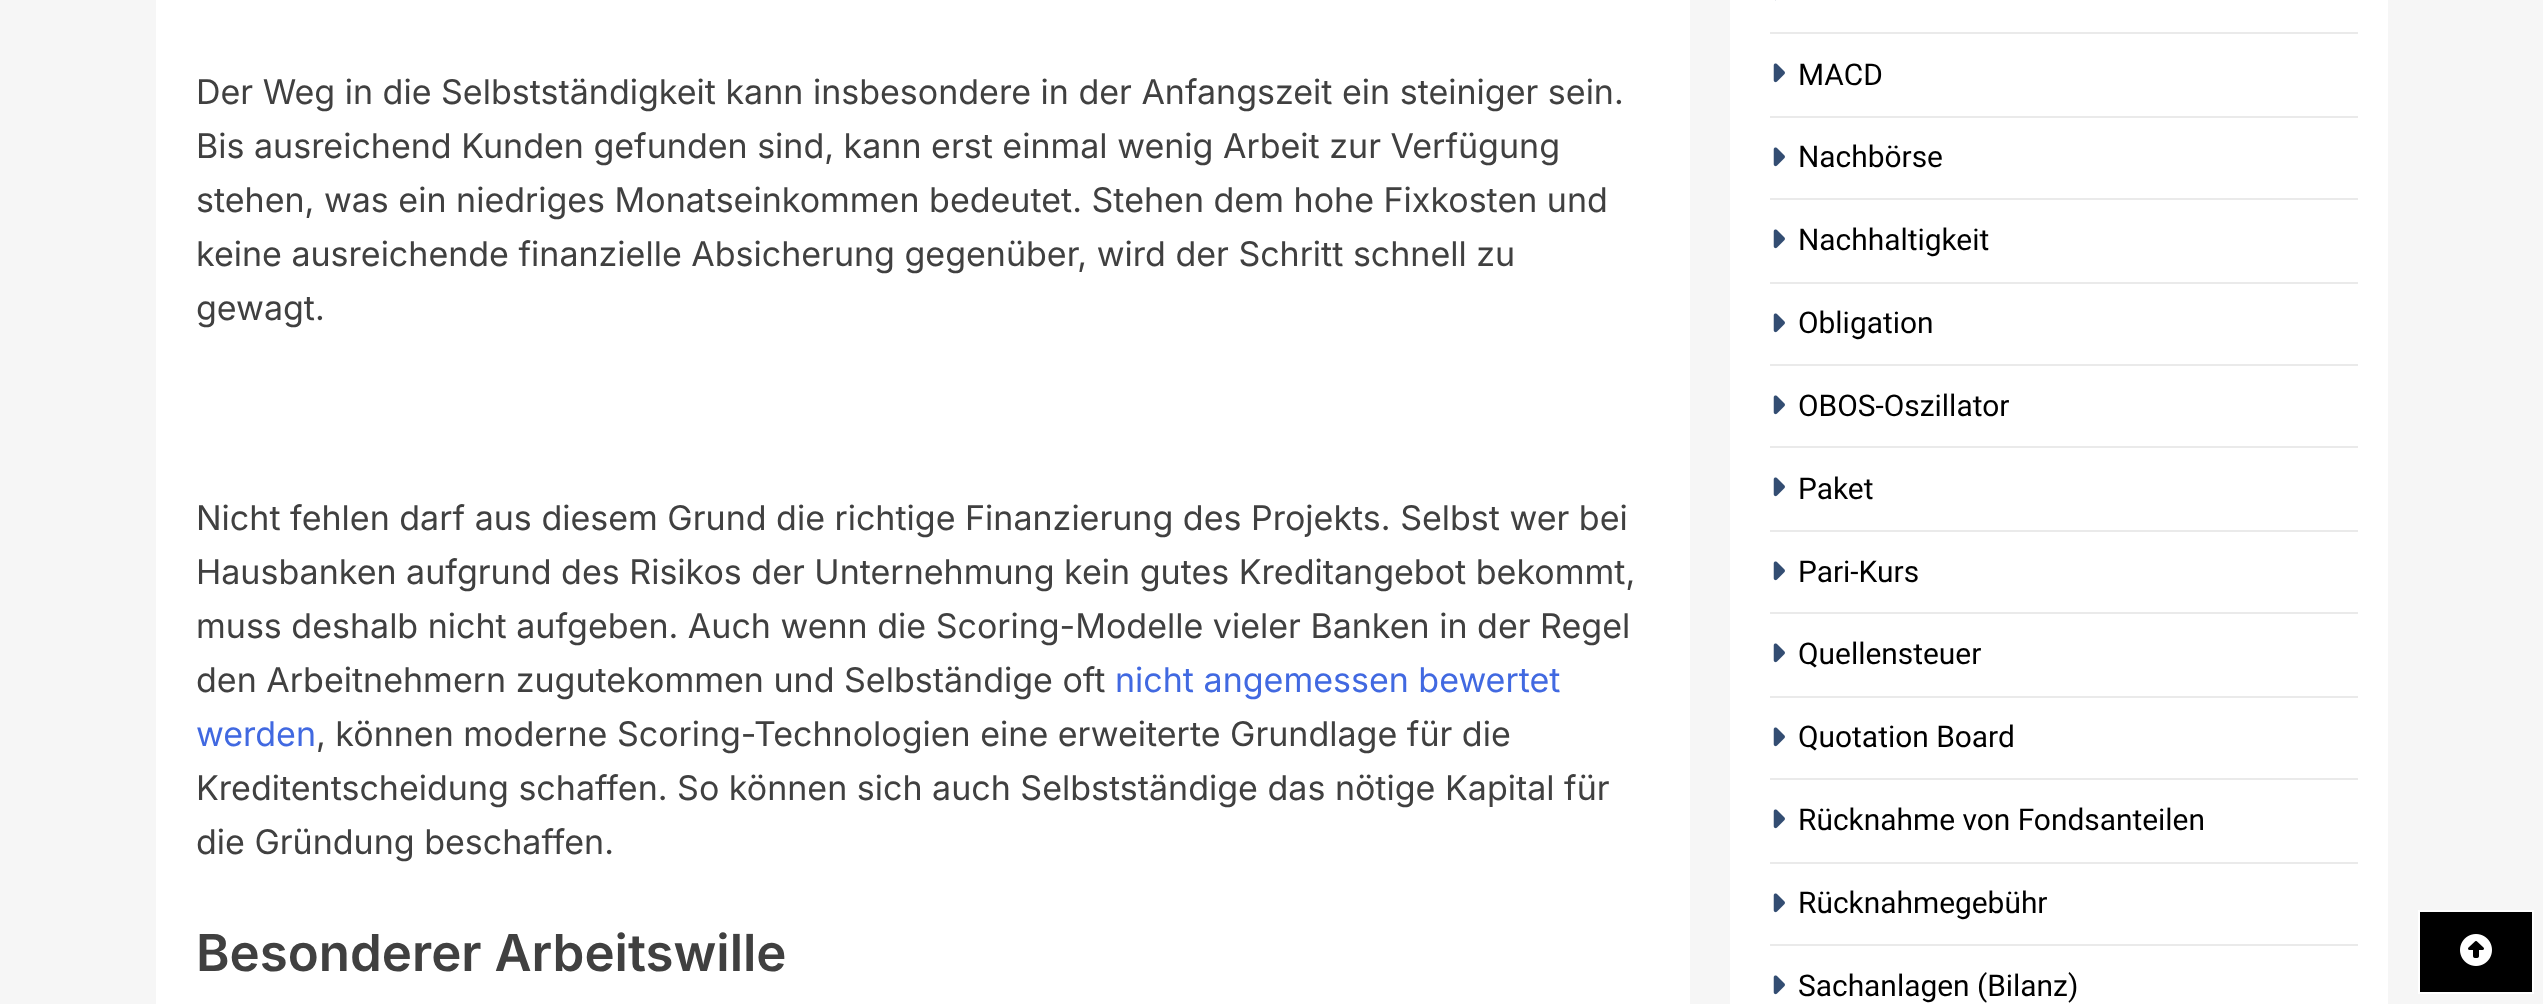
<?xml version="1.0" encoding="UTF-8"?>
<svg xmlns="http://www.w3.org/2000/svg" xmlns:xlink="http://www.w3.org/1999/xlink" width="2543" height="1004">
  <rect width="100%" height="100%" fill="#f6f6f6" />
  <rect x="156" width="1534" height="1004" fill="#ffffff" />
  <rect x="1730" width="658" height="1004" fill="#ffffff" />
  <rect x="1770" y="32" width="588" height="2" fill="#eaeaea" />
  <rect x="1775" width="1" height="1" fill="#e8ebef" />
  <rect x="1770" y="116" width="588" height="2" fill="#eaeaea" />
  <image x="1773" y="63" width="12" height="20" xlink:href="image1.png" />
  <rect x="1770" y="198" width="588" height="2" fill="#eaeaea" />
  <image x="1773" y="147" width="12" height="20" xlink:href="image1.png" />
  <rect x="1770" y="282" width="588" height="2" fill="#eaeaea" />
  <image x="1773" y="229" width="12" height="20" xlink:href="image1.png" />
  <rect x="1770" y="364" width="588" height="2" fill="#eaeaea" />
  <image x="1773" y="313" width="12" height="20" xlink:href="image1.png" />
  <rect x="1770" y="446" width="588" height="2" fill="#eaeaea" />
  <image x="1773" y="395" width="12" height="20" xlink:href="image1.png" />
  <rect x="1770" y="530" width="588" height="2" fill="#eaeaea" />
  <image x="1773" y="477" width="12" height="20" xlink:href="image1.png" />
  <rect x="1770" y="612" width="588" height="2" fill="#eaeaea" />
  <image x="1773" y="561" width="12" height="20" xlink:href="image1.png" />
  <rect x="1770" y="696" width="588" height="2" fill="#eaeaea" />
  <image x="1773" y="643" width="12" height="20" xlink:href="image1.png" />
  <rect x="1770" y="778" width="588" height="2" fill="#eaeaea" />
  <image x="1773" y="727" width="12" height="20" xlink:href="image1.png" />
  <rect x="1770" y="862" width="588" height="2" fill="#eaeaea" />
  <image x="1773" y="809" width="12" height="20" xlink:href="image1.png" />
  <rect x="1770" y="944" width="588" height="2" fill="#eaeaea" />
  <image x="1773" y="893" width="12" height="20" xlink:href="image1.png" />
  <image x="1773" y="975" width="12" height="20" xlink:href="image1.png" />
  <rect x="2419" y="911" width="114" height="82" fill="#000000" stroke="#ffffff" stroke-width="2" />
  <image x="2460" y="934" width="32" height="32" xlink:href="image2.png" />
  <text x="196" y="104" style="font-family: Inter; font-size: 34px; fill: #404040">Der Weg in die Selbstständigkeit kann insbesondere in der Anfangszeit ein steiniger sein.</text>
  <text x="196" y="158" style="font-family: Inter; font-size: 34px; fill: #404040">Bis ausreichend Kunden gefunden sind, kann erst einmal wenig Arbeit zur Verfügung</text>
  <text x="196" y="212" style="font-family: Inter; font-size: 34px; fill: #404040">stehen, was ein niedriges Monatseinkommen bedeutet. Stehen dem hohe Fixkosten und</text>
  <text x="196" y="266" style="font-family: Inter; font-size: 34px; fill: #404040">keine ausreichende finanzielle Absicherung gegenüber, wird der Schritt schnell zu</text>
  <text x="196" y="320" style="font-family: Inter; font-size: 34px; fill: #404040">gewagt.</text>
  <text x="196" y="530" style="font-family: Inter; font-size: 34px; fill: #404040">Nicht fehlen darf aus diesem Grund die richtige Finanzierung des Projekts. Selbst wer bei</text>
  <text x="196" y="584" style="font-family: Inter; font-size: 34px; fill: #404040">Hausbanken aufgrund des Risikos der Unternehmung kein gutes Kreditangebot bekommt,</text>
  <text x="196" y="638" style="font-family: Inter; font-size: 34px; fill: #404040">muss deshalb nicht aufgeben. Auch wenn die Scoring-Modelle vieler Banken in der Regel</text>
  <text x="196" y="692" style="font-family: Inter; font-size: 34px; fill: #404040">den Arbeitnehmern zugutekommen und Selbständige oft</text>
  <text x="1115" y="692" style="font-family: Inter; font-size: 34px; fill: #4169e1">nicht angemessen bewertet</text>
  <text x="196" y="746" style="font-family: Inter; font-size: 34px; fill: #4169e1">werden</text>
  <text x="316" y="746" style="font-family: Inter; font-size: 34px; fill: #404040">, können moderne Scoring-Technologien eine erweiterte Grundlage für die</text>
  <text x="196" y="800" style="font-family: Inter; font-size: 34px; fill: #404040">Kreditentscheidung schaffen. So können sich auch Selbstständige das nötige Kapital für</text>
  <text x="196" y="854" style="font-family: Inter; font-size: 34px; fill: #404040">die Gründung beschaffen.</text>
  <text x="196" y="971" style="font-family: Inter; font-size: 51px; font-weight: 600; fill: #404040">Besonderer Arbeitswille</text>
  <text x="1798" y="85" style="font-family: Roboto; font-size: 29.9px; fill: #000000">MACD</text>
  <text x="1798" y="167" style="font-family: Roboto; font-size: 29.9px; fill: #000000">Nachbörse</text>
  <text x="1798" y="250" style="font-family: Roboto; font-size: 29.9px; fill: #000000">Nachhaltigkeit</text>
  <text x="1798" y="333" style="font-family: Roboto; font-size: 29.9px; fill: #000000">Obligation</text>
  <text x="1798" y="416" style="font-family: Roboto; font-size: 29.9px; fill: #000000">OBOS-Oszillator</text>
  <text x="1798" y="499" style="font-family: Roboto; font-size: 29.9px; fill: #000000">Paket</text>
  <text x="1798" y="582" style="font-family: Roboto; font-size: 29.9px; fill: #000000">Pari-Kurs</text>
  <text x="1798" y="664" style="font-family: Roboto; font-size: 29.9px; fill: #000000">Quellensteuer</text>
  <text x="1798" y="747" style="font-family: Roboto; font-size: 29.9px; fill: #000000">Quotation Board</text>
  <text x="1798" y="830" style="font-family: Roboto; font-size: 29.9px; fill: #000000">Rücknahme von Fondsanteilen</text>
  <text x="1798" y="913" style="font-family: Roboto; font-size: 29.9px; fill: #000000">Rücknahmegebühr</text>
  <text x="1798" y="996" style="font-family: Roboto; font-size: 29.9px; fill: #000000">Sachanlagen (Bilanz)</text>
</svg>
